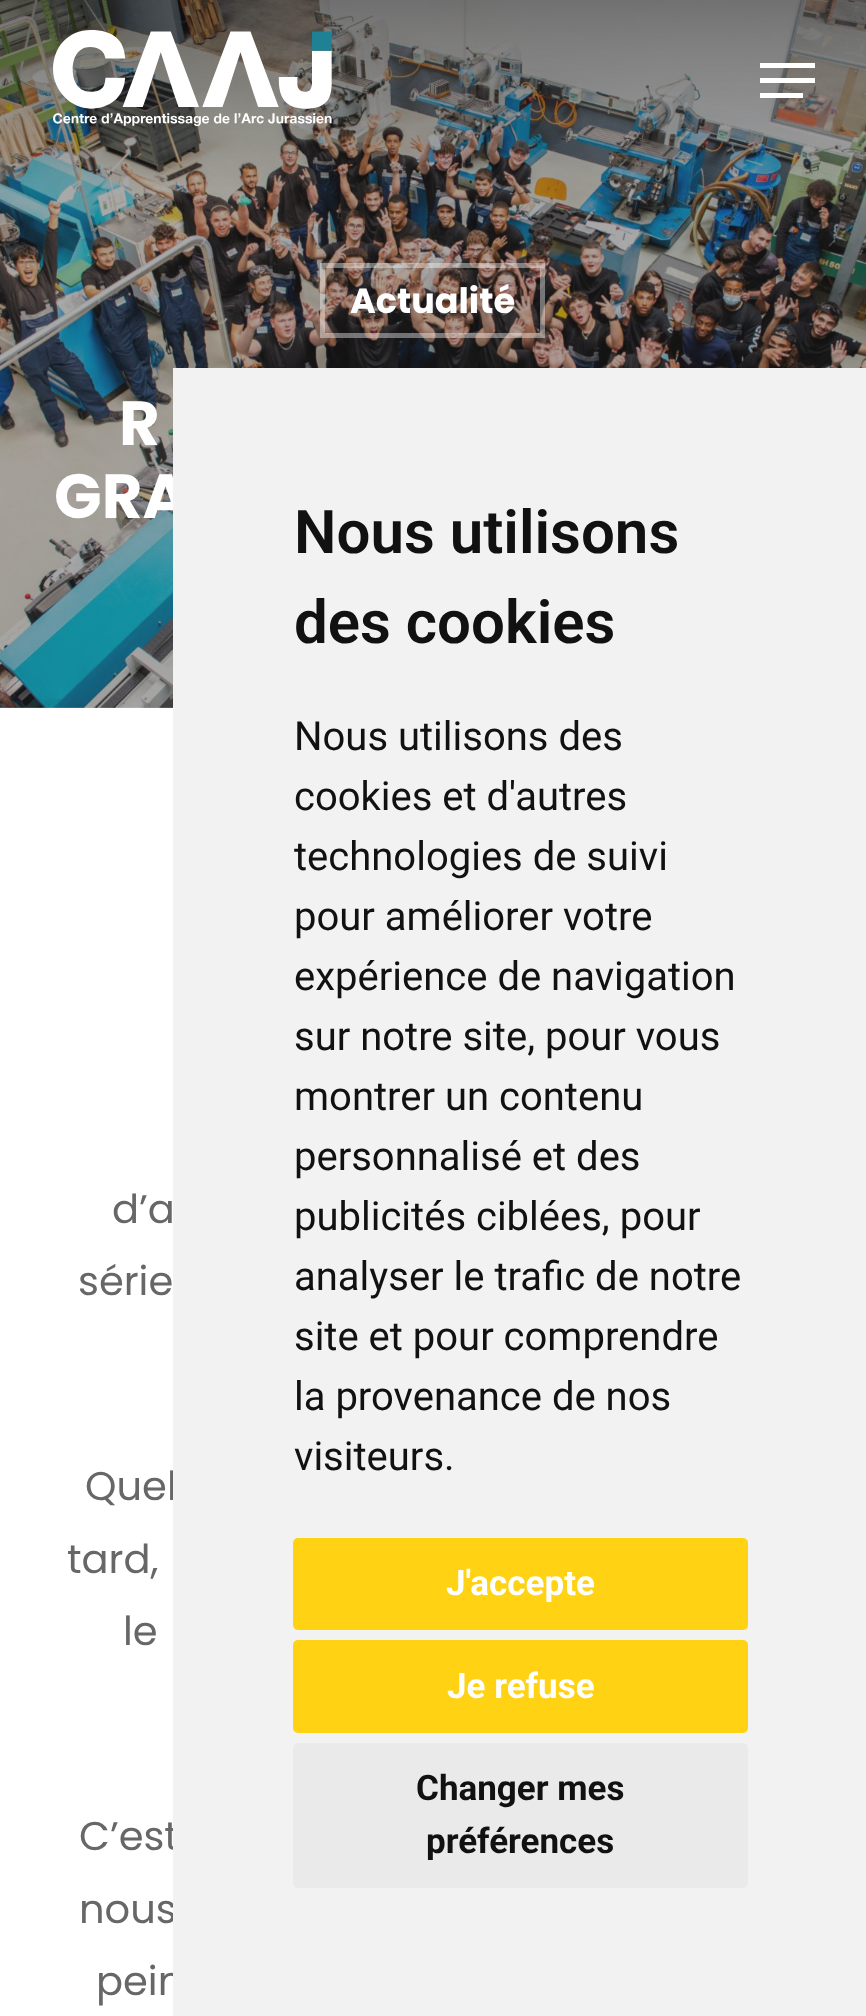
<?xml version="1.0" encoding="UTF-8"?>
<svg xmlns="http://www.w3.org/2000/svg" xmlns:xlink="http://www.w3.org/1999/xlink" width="866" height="2016">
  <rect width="100%" height="100%" fill="#ffffff" />
  <image x="0" y="0" width="866" height="708" xlink:href="image2.png" />
  <image x="53" y="30" width="279" height="96" xlink:href="image1.png" />
  <rect x="760" y="63" width="55" height="5" fill="#ffffff" />
  <rect x="760" y="93" width="43" height="5" fill="#ffffff" />
  <rect x="760" y="78" width="55" height="5" fill="#ffffff" />
  <rect x="322.5" y="265.5" width="220" height="70" fill="none" stroke="#ffffff" stroke-opacity="0.4" stroke-width="5" />
  <text x="350" y="313" style="font-family: Poppins; font-size: 35px; font-weight: bold; fill: #ffffff">Actualité</text>
  <text x="119" y="445" style="font-family: Poppins; font-size: 62.5px; font-weight: bold; fill: #ffffff">R</text>
  <text x="54" y="518" style="font-family: Poppins; font-size: 62.5px; font-weight: bold; fill: #ffffff">GRA</text>
  <text x="112" y="1223" style="font-family: Poppins; font-size: 40px; fill: #676767">d’a</text>
  <text x="78" y="1295" style="font-family: Poppins; font-size: 40px; fill: #676767">série</text>
  <text x="85" y="1500" style="font-family: Poppins; font-size: 40px; fill: #676767">Quel</text>
  <text x="67" y="1573" style="font-family: Poppins; font-size: 40px; fill: #676767">tard,</text>
  <text x="123" y="1645" style="font-family: Poppins; font-size: 40px; fill: #676767">le</text>
  <text x="79" y="1850" style="font-family: Poppins; font-size: 40px; fill: #676767">C’est</text>
  <text x="79" y="1923" style="font-family: Poppins; font-size: 40px; fill: #676767">nous</text>
  <text x="96" y="1995" style="font-family: Poppins; font-size: 40px; fill: #676767">pein</text>
  <rect x="173" y="368" width="693" height="1648" fill="#f2f2f2" />
  <text x="294" y="553" style="font-family: Roboto; font-size: 60px; font-weight: 600; fill: #111111">Nous utilisons</text>
  <text x="294" y="643" style="font-family: Roboto; font-size: 60px; font-weight: 600; fill: #111111">des cookies</text>
  <text x="294" y="750" style="font-family: Roboto; font-size: 40px; fill: #111111">Nous utilisons des</text>
  <text x="294" y="810" style="font-family: Roboto; font-size: 40px; fill: #111111">cookies et d'autres</text>
  <text x="294" y="870" style="font-family: Roboto; font-size: 40px; fill: #111111">technologies de suivi</text>
  <text x="294" y="930" style="font-family: Roboto; font-size: 40px; fill: #111111">pour améliorer votre</text>
  <text x="294" y="990" style="font-family: Roboto; font-size: 40px; fill: #111111">expérience de navigation</text>
  <text x="294" y="1050" style="font-family: Roboto; font-size: 40px; fill: #111111">sur notre site, pour vous</text>
  <text x="294" y="1110" style="font-family: Roboto; font-size: 40px; fill: #111111">montrer un contenu</text>
  <text x="294" y="1170" style="font-family: Roboto; font-size: 40px; fill: #111111">personnalisé et des</text>
  <text x="294" y="1230" style="font-family: Roboto; font-size: 40px; fill: #111111">publicités ciblées, pour</text>
  <text x="294" y="1290" style="font-family: Roboto; font-size: 40px; fill: #111111">analyser le trafic de notre</text>
  <text x="294" y="1350" style="font-family: Roboto; font-size: 40px; fill: #111111">site et pour comprendre</text>
  <text x="294" y="1410" style="font-family: Roboto; font-size: 40px; fill: #111111">la provenance de nos</text>
  <text x="294" y="1470" style="font-family: Roboto; font-size: 40px; fill: #111111">visiteurs.</text>
  <rect x="293" y="1538" width="455" height="92" rx="5" fill="#ffd214" />
  <text x="446" y="1595" style="font-family: Roboto; font-size: 35px; font-weight: bold; fill: #ffffff">J'accepte</text>
  <rect x="293" y="1640" width="455" height="93" rx="5" fill="#ffd214" />
  <text x="447" y="1698" style="font-family: Roboto; font-size: 35px; font-weight: bold; fill: #ffffff">Je refuse</text>
  <rect x="293" y="1743" width="455" height="145" rx="5" fill="#eaeaea" />
  <text x="416" y="1800" style="font-family: Roboto; font-size: 35px; font-weight: bold; fill: #111111">Changer mes</text>
  <text x="426" y="1853" style="font-family: Roboto; font-size: 35px; font-weight: bold; fill: #111111">préférences</text>
</svg>
